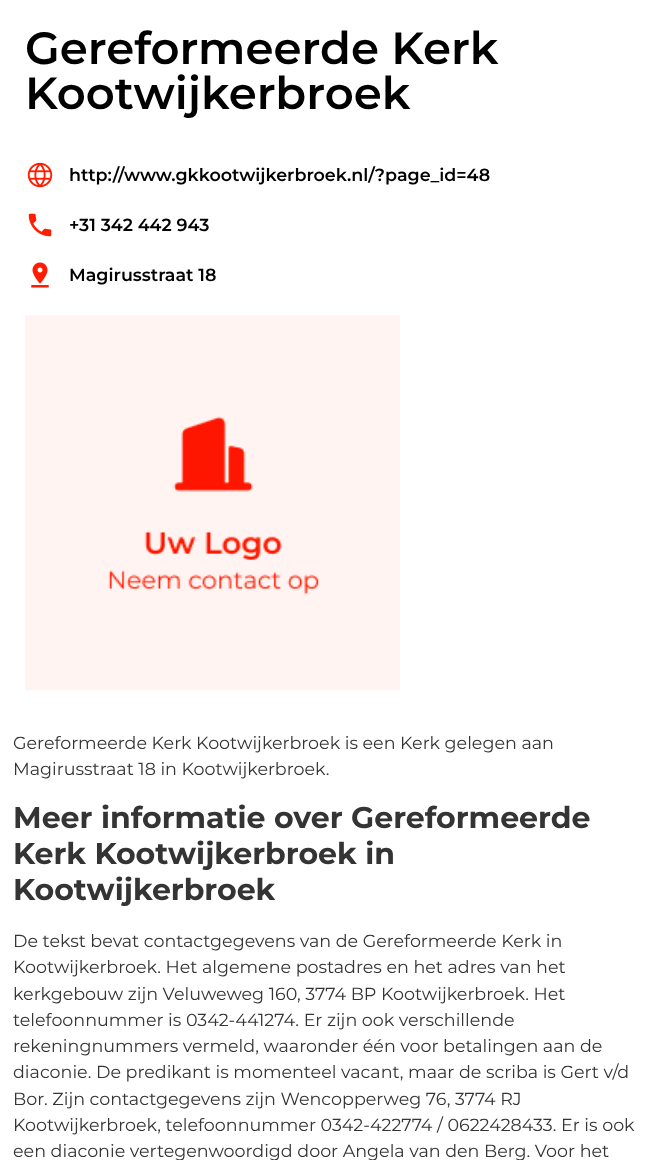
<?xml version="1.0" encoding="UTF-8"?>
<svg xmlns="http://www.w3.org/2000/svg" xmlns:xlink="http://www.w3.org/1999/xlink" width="660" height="1160">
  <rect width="100%" height="100%" fill="#ffffff" />
  <image x="27" y="162" width="26" height="26" xlink:href="image1.png" />
  <image x="28" y="213" width="24" height="24" xlink:href="image2.png" />
  <image x="31" y="262" width="18" height="26" xlink:href="image3.png" />
  <image x="25" y="315" width="375" height="375" xlink:href="image4.png" />
  <text x="25" y="64" style="font-family: Montserrat; font-size: 45px; font-weight: 600; fill: #000000">Gereformeerde Kerk</text>
  <text x="25" y="109" style="font-family: Montserrat; font-size: 45px; font-weight: 600; fill: #000000">Kootwijkerbroek</text>
  <text x="69" y="181" style="font-family: Montserrat; font-size: 17.5px; font-weight: 600; fill: #000000">http://www.gkkootwijkerbroek.nl/?page_id=48</text>
  <text x="69" y="231" style="font-family: Montserrat; font-size: 17.5px; font-weight: 600; fill: #000000">+31 342 442 943</text>
  <text x="69" y="281" style="font-family: Montserrat; font-size: 17.5px; font-weight: 600; fill: #000000">Magirusstraat 18</text>
  <text x="13" y="749" style="font-family: Montserrat; font-size: 17.5px; fill: #343434">Gereformeerde Kerk Kootwijkerbroek is een Kerk gelegen aan</text>
  <text x="13" y="775" style="font-family: Montserrat; font-size: 17.5px; fill: #343434">Magirusstraat 18 in Kootwijkerbroek.</text>
  <text x="13" y="828" style="font-family: Montserrat; font-size: 30px; font-weight: bold; fill: #343434">Meer informatie over Gereformeerde</text>
  <text x="13" y="864" style="font-family: Montserrat; font-size: 30px; font-weight: bold; fill: #343434">Kerk Kootwijkerbroek in</text>
  <text x="13" y="900" style="font-family: Montserrat; font-size: 30px; font-weight: bold; fill: #343434">Kootwijkerbroek</text>
  <text x="13" y="947" style="font-family: Montserrat; font-size: 17.5px; fill: #343434">De tekst bevat contactgegevens van de Gereformeerde Kerk in</text>
  <text x="13" y="973" style="font-family: Montserrat; font-size: 17.5px; fill: #343434">Kootwijkerbroek. Het algemene postadres en het adres van het</text>
  <text x="13" y="1000" style="font-family: Montserrat; font-size: 17.5px; fill: #343434">kerkgebouw zijn Veluweweg 160, 3774 BP Kootwijkerbroek. Het</text>
  <text x="13" y="1026" style="font-family: Montserrat; font-size: 17.5px; fill: #343434">telefoonnummer is 0342-441274. Er zijn ook verschillende</text>
  <text x="13" y="1052" style="font-family: Montserrat; font-size: 17.5px; fill: #343434">rekeningnummers vermeld, waaronder één voor betalingen aan de</text>
  <text x="13" y="1078" style="font-family: Montserrat; font-size: 17.5px; fill: #343434">diaconie. De predikant is momenteel vacant, maar de scriba is Gert v/d</text>
  <text x="13" y="1105" style="font-family: Montserrat; font-size: 17.5px; fill: #343434">Bor. Zijn contactgegevens zijn Wencopperweg 76, 3774 RJ</text>
  <text x="13" y="1131" style="font-family: Montserrat; font-size: 17.5px; fill: #343434">Kootwijkerbroek, telefoonnummer 0342-422774 / 0622428433. Er is ook</text>
  <text x="13" y="1157" style="font-family: Montserrat; font-size: 17.5px; fill: #343434">een diaconie vertegenwoordigd door Angela van den Berg. Voor het</text>
</svg>
